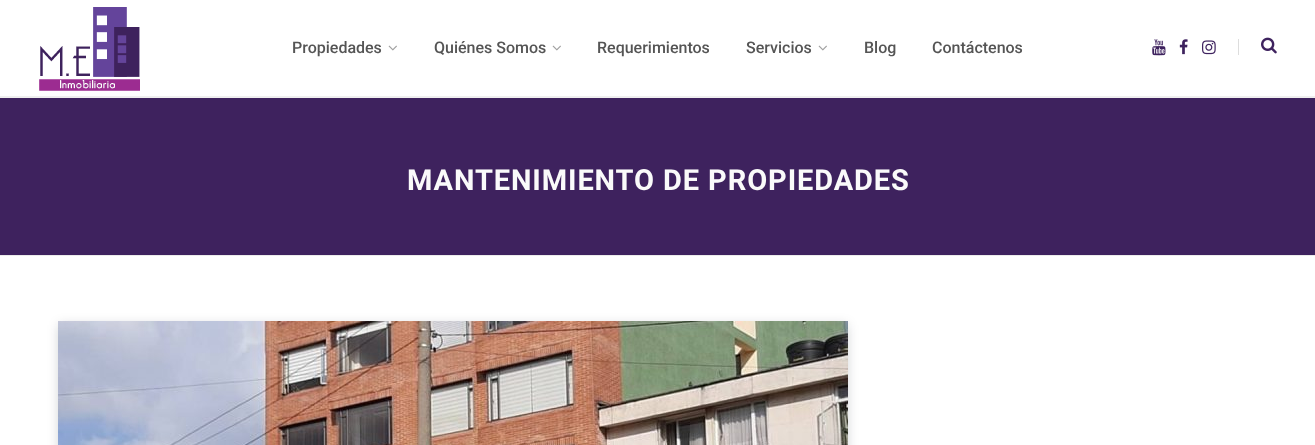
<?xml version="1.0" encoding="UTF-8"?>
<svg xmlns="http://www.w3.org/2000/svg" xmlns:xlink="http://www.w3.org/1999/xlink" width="1315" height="445">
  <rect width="100%" height="100%" fill="#ffffff" />
  <rect y="96" width="1315" height="2" fill="#efefef" />
  <image x="39" y="7" width="101" height="84" xlink:href="image1.png" />
  <image x="388" y="45" width="9" height="6" xlink:href="image2.png" />
  <image x="552" y="45" width="9" height="6" xlink:href="image2.png" />
  <image x="818" y="45" width="9" height="6" xlink:href="image2.png" />
  <image x="1152" y="39" width="14" height="17" xlink:href="image3.png" />
  <image x="1179" y="39" width="9" height="16" xlink:href="image4.png" />
  <image x="1202" y="40" width="14" height="15" xlink:href="image5.png" />
  <rect x="1238" y="39" width="1" height="16" fill="#dddddd" />
  <image x="1261" y="37" width="16" height="17" xlink:href="image6.png" />
  <rect y="98" width="1315" height="157" fill="#3e225e" />
  <rect y="255" width="1315" height="1" fill="#ebebeb" />
  <rect x="59" y="325" width="788" height="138" fill="#070a19" fill-opacity="0.2" filter="blur(6px)" />
  <image x="58" y="321" width="790" height="124" xlink:href="image7.png" />
  <text x="292" y="53" style="font-family: Roboto; font-size: 16px; font-weight: 500; fill: #555555">Propiedades</text>
  <text x="434" y="53" style="font-family: Roboto; font-size: 16px; font-weight: 500; fill: #555555">Quiénes Somos</text>
  <text x="597" y="53" style="font-family: Roboto; font-size: 16px; font-weight: 500; fill: #555555">Requerimientos</text>
  <text x="746" y="53" style="font-family: Roboto; font-size: 16px; font-weight: 500; fill: #555555">Servicios</text>
  <text x="864" y="53" style="font-family: Roboto; font-size: 16px; font-weight: 500; fill: #555555">Blog</text>
  <text x="932" y="53" style="font-family: Roboto; font-size: 16px; font-weight: 500; fill: #555555">Contáctenos</text>
  <text x="407" y="190" style="font-family: Roboto; font-size: 29px; font-weight: bold; letter-spacing: 0.9px; fill: #fafafa">MANTENIMIENTO DE PROPIEDADES</text>
</svg>
